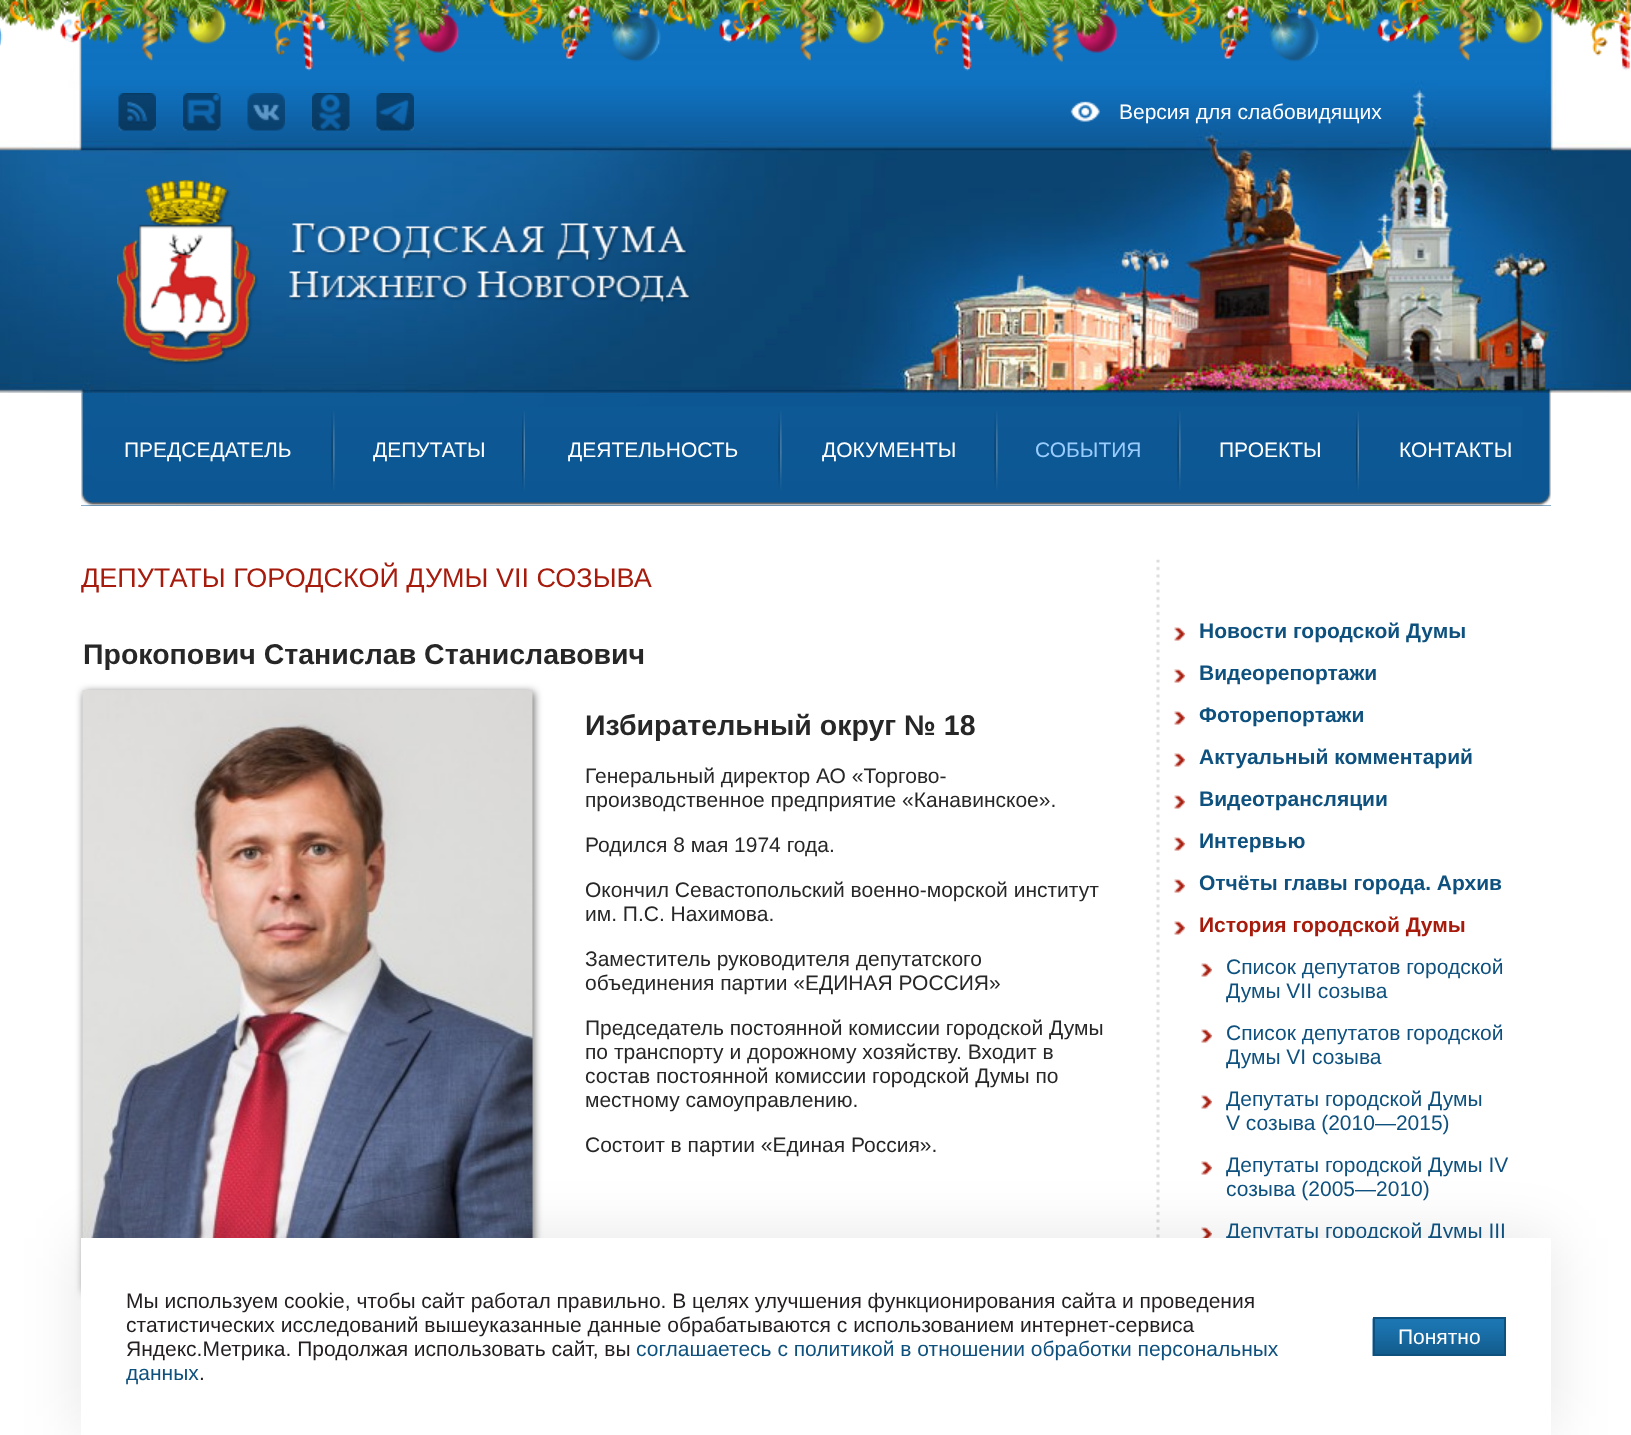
<?xml version="1.0" encoding="UTF-8"?>
<svg xmlns="http://www.w3.org/2000/svg" xmlns:xlink="http://www.w3.org/1999/xlink" width="1631" height="1435">
  <rect width="100%" height="100%" fill="#ffffff" />
  <image x="0" y="0" width="1631" height="393" xlink:href="image2.png" />
  <image x="0" y="0" width="1631" height="71" xlink:href="image1.png" />
  <image x="118" y="93" width="38" height="38" xlink:href="image3.png" />
  <image x="183" y="93" width="38" height="38" xlink:href="image4.png" />
  <image x="247" y="93" width="38" height="38" xlink:href="image5.png" />
  <image x="312" y="93" width="38" height="38" xlink:href="image6.png" />
  <image x="376" y="93" width="38" height="38" xlink:href="image7.png" />
  <image x="1070" y="101" width="30" height="21" xlink:href="image8.png" />
  <image x="117" y="180" width="574" height="185" xlink:href="image9.png" />
  <rect x="81" y="505" width="1470" height="1" fill="#0e5a97" />
  <image x="81" y="393" width="1470" height="113" xlink:href="image10.png" />
  <image x="331" y="411" width="4" height="79" xlink:href="image11.png" />
  <image x="522" y="411" width="3" height="79" xlink:href="image12.png" />
  <image x="778" y="411" width="4" height="79" xlink:href="image11.png" />
  <image x="994" y="411" width="4" height="79" xlink:href="image11.png" />
  <image x="1177" y="411" width="4" height="79" xlink:href="image11.png" />
  <image x="1356" y="411" width="3" height="79" xlink:href="image12.png" />
  <rect x="84" y="692" width="450" height="600" fill="#666666" filter="blur(4px)" />
  <image x="82" y="690" width="451" height="548" xlink:href="image13.png" />
  <image x="1156" y="559" width="4" height="679" xlink:href="image14.png" />
  <image x="1174" y="627" width="11" height="14" xlink:href="image15.png" />
  <image x="1174" y="669" width="11" height="14" xlink:href="image15.png" />
  <image x="1174" y="711" width="11" height="14" xlink:href="image15.png" />
  <image x="1174" y="753" width="11" height="14" xlink:href="image15.png" />
  <image x="1174" y="795" width="11" height="14" xlink:href="image15.png" />
  <image x="1174" y="837" width="11" height="14" xlink:href="image15.png" />
  <image x="1174" y="879" width="11" height="14" xlink:href="image15.png" />
  <image x="1174" y="921" width="11" height="14" xlink:href="image15.png" />
  <image x="1201" y="963" width="11" height="14" xlink:href="image15.png" />
  <image x="1201" y="1029" width="11" height="14" xlink:href="image15.png" />
  <image x="1201" y="1095" width="11" height="14" xlink:href="image15.png" />
  <image x="1201" y="1161" width="11" height="14" xlink:href="image15.png" />
  <image x="1201" y="1227" width="11" height="11" xlink:href="image16.png" />
  <rect x="81" y="1238" width="1470" height="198" fill="#000000" fill-opacity="0.1" filter="blur(30px)" />
  <text x="1119" y="119" style="font-family: Liberation Sans; font-size: 21px; fill: #ffffff">Версия для слабовидящих</text>
  <text x="124" y="457" style="font-family: Liberation Sans; font-size: 21px; fill: #ffffff">ПРЕДСЕДАТЕЛЬ</text>
  <text x="373" y="457" style="font-family: Liberation Sans; font-size: 21px; fill: #ffffff">ДЕПУТАТЫ</text>
  <text x="568" y="457" style="font-family: Liberation Sans; font-size: 21px; fill: #ffffff">ДЕЯТЕЛЬНОСТЬ</text>
  <text x="822" y="457" style="font-family: Liberation Sans; font-size: 21px; fill: #ffffff">ДОКУМЕНТЫ</text>
  <text x="1035" y="457" style="font-family: Liberation Sans; font-size: 21px; fill: #99ccff">СОБЫТИЯ</text>
  <text x="1219" y="457" style="font-family: Liberation Sans; font-size: 21px; fill: #ffffff">ПРОЕКТЫ</text>
  <text x="1399" y="457" style="font-family: Liberation Sans; font-size: 21px; fill: #ffffff">КОНТАКТЫ</text>
  <text x="81" y="587" style="font-family: Liberation Sans; font-size: 27px; fill: #a71b0c">ДЕПУТАТЫ ГОРОДСКОЙ ДУМЫ VII СОЗЫВА</text>
  <text x="83" y="664" style="font-family: Liberation Sans; font-size: 28.5px; font-weight: bold; fill: #272727">Прокопович Станислав Станиславович</text>
  <text x="585" y="735" style="font-family: Liberation Sans; font-size: 28.5px; font-weight: bold; fill: #272727">Избирательный округ № 18</text>
  <text x="585" y="783" style="font-family: Liberation Sans; font-size: 21px; fill: #272727">Генеральный директор АО «Торгово-</text>
  <text x="585" y="807" style="font-family: Liberation Sans; font-size: 21px; fill: #272727">производственное предприятие «Канавинское».</text>
  <text x="585" y="852" style="font-family: Liberation Sans; font-size: 21px; fill: #272727">Родился 8 мая 1974 года.</text>
  <text x="585" y="897" style="font-family: Liberation Sans; font-size: 21px; fill: #272727">Окончил Севастопольский военно-морской институт</text>
  <text x="585" y="921" style="font-family: Liberation Sans; font-size: 21px; fill: #272727">им. П.С. Нахимова.</text>
  <text x="585" y="966" style="font-family: Liberation Sans; font-size: 21px; fill: #272727">Заместитель руководителя депутатского</text>
  <text x="585" y="990" style="font-family: Liberation Sans; font-size: 21px; fill: #272727">объединения партии «ЕДИНАЯ РОССИЯ»</text>
  <text x="585" y="1035" style="font-family: Liberation Sans; font-size: 21px; fill: #272727">Председатель постоянной комиссии городской Думы</text>
  <text x="585" y="1059" style="font-family: Liberation Sans; font-size: 21px; fill: #272727">по транспорту и дорожному хозяйству. Входит в</text>
  <text x="585" y="1083" style="font-family: Liberation Sans; font-size: 21px; fill: #272727">состав постоянной комиссии городской Думы по</text>
  <text x="585" y="1107" style="font-family: Liberation Sans; font-size: 21px; fill: #272727">местному самоуправлению.</text>
  <text x="585" y="1152" style="font-family: Liberation Sans; font-size: 21px; fill: #272727">Состоит в партии «Единая Россия».</text>
  <text x="1199" y="638" style="font-family: Liberation Sans; font-size: 21px; font-weight: bold; fill: #0e517e">Новости городской Думы</text>
  <text x="1199" y="680" style="font-family: Liberation Sans; font-size: 21px; font-weight: bold; fill: #0e517e">Видеорепортажи</text>
  <text x="1199" y="722" style="font-family: Liberation Sans; font-size: 21px; font-weight: bold; fill: #0e517e">Фоторепортажи</text>
  <text x="1199" y="764" style="font-family: Liberation Sans; font-size: 21px; font-weight: bold; fill: #0e517e">Актуальный комментарий</text>
  <text x="1199" y="806" style="font-family: Liberation Sans; font-size: 21px; font-weight: bold; fill: #0e517e">Видеотрансляции</text>
  <text x="1199" y="848" style="font-family: Liberation Sans; font-size: 21px; font-weight: bold; fill: #0e517e">Интервью</text>
  <text x="1199" y="890" style="font-family: Liberation Sans; font-size: 21px; font-weight: bold; fill: #0e517e">Отчёты главы города. Архив</text>
  <text x="1199" y="932" style="font-family: Liberation Sans; font-size: 21px; font-weight: bold; fill: #a71b0c">История городской Думы</text>
  <text x="1226" y="974" style="font-family: Liberation Sans; font-size: 21px; fill: #0e517e">Список депутатов городской</text>
  <text x="1226" y="998" style="font-family: Liberation Sans; font-size: 21px; fill: #0e517e">Думы VII созыва</text>
  <text x="1226" y="1040" style="font-family: Liberation Sans; font-size: 21px; fill: #0e517e">Список депутатов городской</text>
  <text x="1226" y="1064" style="font-family: Liberation Sans; font-size: 21px; fill: #0e517e">Думы VI созыва</text>
  <text x="1226" y="1106" style="font-family: Liberation Sans; font-size: 21px; fill: #0e517e">Депутаты городской Думы</text>
  <text x="1226" y="1130" style="font-family: Liberation Sans; font-size: 21px; fill: #0e517e">V созыва (2010—2015)</text>
  <text x="1226" y="1172" style="font-family: Liberation Sans; font-size: 21px; fill: #0e517e">Депутаты городской Думы IV</text>
  <text x="1226" y="1196" style="font-family: Liberation Sans; font-size: 21px; fill: #0e517e">созыва (2005—2010)</text>
  <text x="1226" y="1238" style="font-family: Liberation Sans; font-size: 21px; fill: #0e517e">Депутаты городской Думы III</text>
  <rect x="81" y="1238" width="1470" height="197" fill="#ffffff" />
  <text x="126" y="1308" style="font-family: Liberation Sans; font-size: 21px; fill: #231f20">Мы используем cookie, чтобы сайт работал правильно. В целях улучшения функционирования сайта и проведения</text>
  <text x="126" y="1332" style="font-family: Liberation Sans; font-size: 21px; fill: #231f20">статистических исследований вышеуказанные данные обрабатываются с использованием интернет-сервиса</text>
  <text x="126" y="1356" style="font-family: Liberation Sans; font-size: 21px; fill: #231f20">Яндекс.Метрика. Продолжая использовать сайт, вы</text>
  <text x="636" y="1356" style="font-family: Liberation Sans; font-size: 21px; fill: #0e517e">соглашаетесь с политикой в отношении обработки персональных</text>
  <text x="126" y="1380" style="font-family: Liberation Sans; font-size: 21px; fill: #0e517e">данных</text>
  <text x="199" y="1380" style="font-family: Liberation Sans; font-size: 21px; fill: #231f20">.</text>
  <image x="1372" y="1318" width="132" height="38" xlink:href="image17.png" />
  <rect x="1374" y="1318" width="131" height="37" fill="none" stroke="#0e517e" stroke-width="2" />
  <text x="1398" y="1344" style="font-family: Liberation Sans; font-size: 21px; fill: #ffffff">Понятно</text>
</svg>
